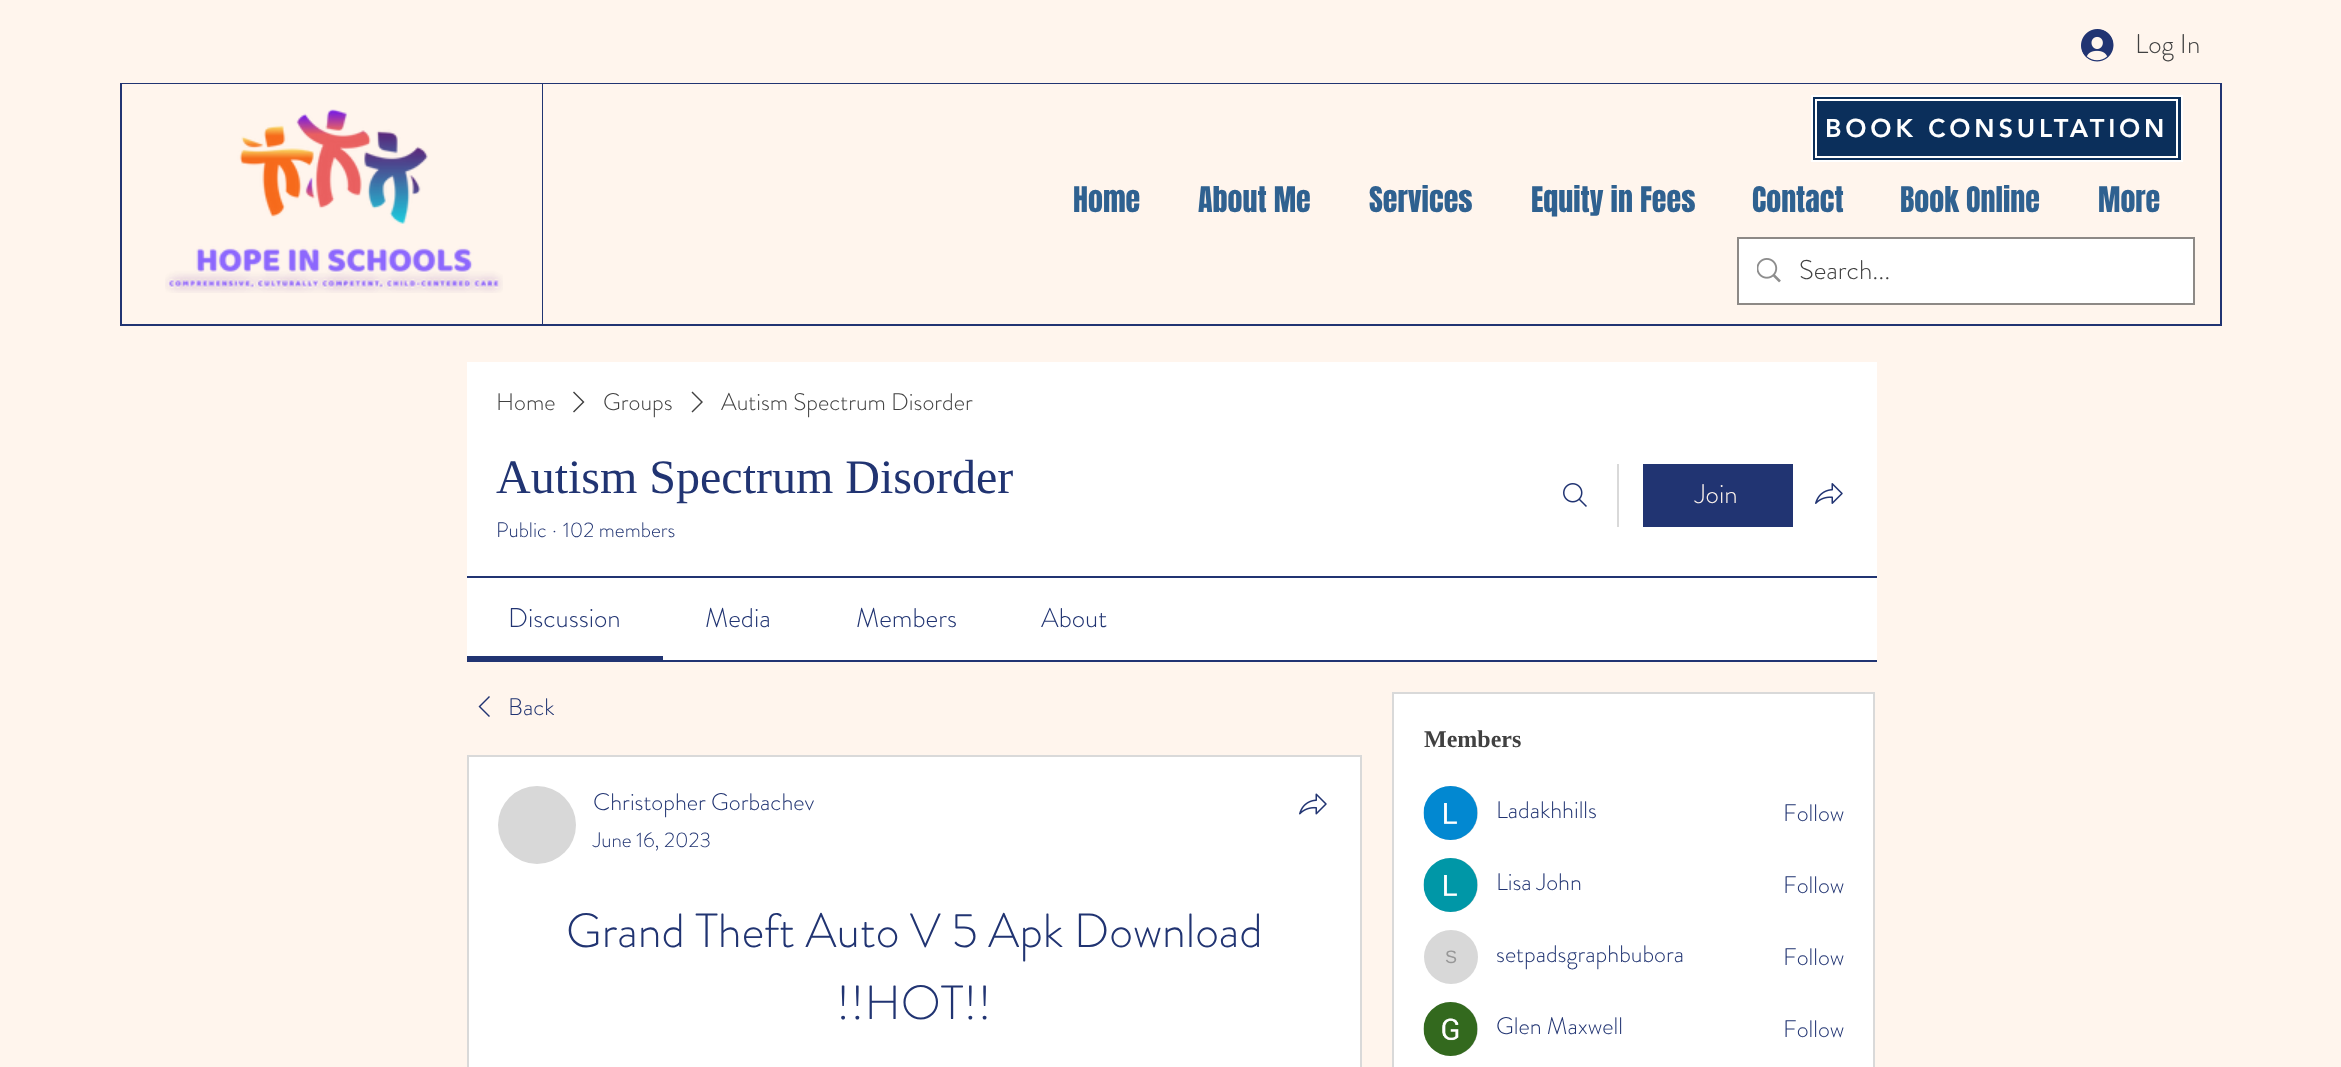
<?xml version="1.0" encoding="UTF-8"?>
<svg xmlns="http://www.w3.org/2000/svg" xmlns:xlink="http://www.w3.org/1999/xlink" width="2341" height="1067">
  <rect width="100%" height="100%" fill="#fff5ed" />
  <image x="2081" y="29" width="33" height="33" xlink:href="image1.png" />
  <rect x="120" y="83" width="2102" height="243" fill="#213472" />
  <rect x="122" y="84" width="420" height="240" fill="#fff5ed" />
  <image x="165" y="109" width="338" height="184" xlink:href="image2.png" />
  <rect x="543" y="84" width="1677" height="240" fill="#fff5ed" />
  <rect x="1812" y="96" width="370" height="65" fill="#0b2f5b" stroke="#ffffff" stroke-width="2" />
  <rect x="1816" y="100" width="361" height="57" fill="none" stroke="#ffffff" stroke-width="2" />
  <rect x="1738" y="238" width="456" height="66" fill="none" stroke="#8d8986" stroke-width="2" />
  <rect x="1739" y="239" width="454" height="64" fill="#ffffff" />
  <image x="1757" y="258" width="24" height="25" xlink:href="image3.png" />
  <rect x="467" y="362" width="1410" height="298" fill="#ffffff" />
  <path d="M 574 391.5 l 10.5 10.5 l -10.5 10.5 l -1 -1 l 9.5 -9.5 l -9.5 -9.5 z" fill="#414141" fill-rule="evenodd" />
  <path d="M 692.5 391.5 l 10.5 10.5 l -10.5 10.5 l -1 -1 l 9.5 -9.5 l -9.5 -9.5 z" fill="#414141" fill-rule="evenodd" />
  <image x="1563" y="483" width="24" height="24" xlink:href="image4.png" />
  <rect x="1617" y="464" width="2" height="63" fill="#d9d9d9" />
  <rect x="1643" y="464" width="150" height="63" fill="#213472" />
  <image x="1815" y="483" width="28" height="21" xlink:href="image5.png" />
  <rect x="467" y="576" width="1410" height="2" fill="#213472" />
  <rect x="467" y="660" width="1410" height="2" fill="#213472" />
  <rect x="467" y="656" width="196" height="4" fill="#213472" />
  <path d="M 489 696 l 1 1 l -9.5 9.5 l 9.5 9.5 l -1 1 l -10.5 -10.5 z" fill="#213472" fill-rule="evenodd" />
  <rect x="468" y="756" width="893" height="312" fill="#ffffff" stroke="#d9d9d9" stroke-width="2" />
  <circle cx="537" cy="825" r="39" fill="#d8d8d8" />
  <image x="1299" y="793" width="28" height="22" xlink:href="image6.png" />
  <rect x="1393" y="693" width="481" height="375" fill="#ffffff" stroke="#d9d9d9" stroke-width="2" />
  <circle cx="1451" cy="813" r="27" fill="#d8d8d8" />
  <image x="1423" y="786" width="55" height="54" xlink:href="image7.png" />
  <circle cx="1451" cy="885" r="27" fill="#d8d8d8" />
  <image x="1423" y="858" width="55" height="54" xlink:href="image8.png" />
  <circle cx="1451" cy="957" r="27" fill="#d8d8d8" />
  <circle cx="1451" cy="1029" r="27" fill="#d8d8d8" />
  <image x="1423" y="1002" width="55" height="54" xlink:href="image9.png" />
  <text x="2135" y="53" style="font-family: 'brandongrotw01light'; font-size: 27px; font-weight: 300; fill: #414141">Log In</text>
  <text x="1825" y="137" style="font-family: 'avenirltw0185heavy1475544'; font-size: 25.5px; font-weight: 900; letter-spacing: 3.8px; fill: #ffffff">BOOK CONSULTATION</text>
  <text x="1073" y="212" style="font-family: Anton; font-size: 30px; fill: #2f6190">Home</text>
  <text x="1198" y="212" style="font-family: Anton; font-size: 30px; fill: #2f6190">About Me</text>
  <text x="1369" y="212" style="font-family: Anton; font-size: 30px; fill: #2f6190">Services</text>
  <text x="1531" y="212" style="font-family: Anton; font-size: 30px; fill: #2f6190">Equity in Fees</text>
  <text x="1752" y="212" style="font-family: Anton; font-size: 30px; fill: #2f6190">Contact</text>
  <text x="1900" y="212" style="font-family: Anton; font-size: 30px; fill: #2f6190">Book Online</text>
  <text x="2098" y="212" style="font-family: Anton; font-size: 30px; fill: #2f6190">More</text>
  <text x="1799" y="279" style="font-family: 'brandongrotw01light'; font-size: 27px; font-weight: 300; fill: #414141">Search...</text>
  <text x="496" y="410" style="font-family: 'brandongrotw01light'; font-size: 24px; font-weight: 300; fill: #414141">Home</text>
  <text x="603" y="410" style="font-family: 'brandongrotw01light'; font-size: 24px; font-weight: 300; fill: #414141">Groups</text>
  <text x="721" y="410" style="font-family: 'brandongrotw01light'; font-size: 24px; font-weight: 300; fill: #414141">Autism Spectrum Disorder</text>
  <text x="496" y="493" style="font-family: Liberation Serif; font-size: 48px; fill: #213472">Autism Spectrum Disorder</text>
  <text x="496" y="537" style="font-family: 'brandongrotw01light'; font-size: 21px; font-weight: 300; fill: #213472">Public</text>
  <text x="552" y="537" style="font-family: 'brandongrotw01light'; font-size: 21px; font-weight: 300; fill: #213472">·</text>
  <text x="563" y="537" style="font-family: 'brandongrotw01light'; font-size: 21px; font-weight: 300; fill: #213472">102 members</text>
  <text x="1695" y="503" style="font-family: 'brandongrotw01light'; font-size: 27px; font-weight: 300; fill: #fff5ed">Join</text>
  <text x="508" y="627" style="font-family: 'brandongrotw01light'; font-size: 27px; font-weight: 300; fill: #213472">Discussion</text>
  <text x="705" y="627" style="font-family: 'brandongrotw01light'; font-size: 27px; font-weight: 300; fill: #213472">Media</text>
  <text x="856" y="627" style="font-family: 'brandongrotw01light'; font-size: 27px; font-weight: 300; fill: #213472">Members</text>
  <text x="1041" y="627" style="font-family: 'brandongrotw01light'; font-size: 27px; font-weight: 300; fill: #213472">About</text>
  <text x="508" y="715" style="font-family: 'brandongrotw01light'; font-size: 24px; font-weight: 300; fill: #213472">Back</text>
  <text x="593" y="810" style="font-family: 'brandongrotw01light'; font-size: 24px; font-weight: 300; fill: #213472">Christopher Gorbachev</text>
  <text x="593" y="847" style="font-family: 'brandongrotw01light'; font-size: 21px; font-weight: 300; fill: #213472">June 16, 2023</text>
  <text x="566" y="947" style="font-family: 'brandongrotw01light'; font-size: 48px; font-weight: 300; fill: #213472">Grand Theft Auto V 5 Apk Download</text>
  <text x="836" y="1019" style="font-family: 'brandongrotw01light'; font-size: 48px; font-weight: 300; fill: #213472">!!HOT!!</text>
  <text x="1424" y="747" style="font-family: Liberation Serif; font-size: 24px; font-weight: bold; fill: #414141">Members</text>
  <text x="1496" y="818" style="font-family: 'brandongrotw01light'; font-size: 24px; font-weight: 300; fill: #213472">Ladakhhills</text>
  <text x="1783" y="821" style="font-family: 'brandongrotw01light'; font-size: 24px; font-weight: 300; fill: #213472">Follow</text>
  <text x="1496" y="890" style="font-family: 'brandongrotw01light'; font-size: 24px; font-weight: 300; fill: #213472">Lisa John</text>
  <text x="1783" y="893" style="font-family: 'brandongrotw01light'; font-size: 24px; font-weight: 300; fill: #213472">Follow</text>
  <text x="1445" y="963" style="font-family: Liberation Sans; font-size: 18px; fill: #979797">S</text>
  <text x="1496" y="962" style="font-family: 'brandongrotw01light'; font-size: 24px; font-weight: 300; fill: #213472">setpadsgraphbubora</text>
  <text x="1783" y="965" style="font-family: 'brandongrotw01light'; font-size: 24px; font-weight: 300; fill: #213472">Follow</text>
  <text x="1496" y="1034" style="font-family: 'brandongrotw01light'; font-size: 24px; font-weight: 300; fill: #213472">Glen Maxwell</text>
  <text x="1783" y="1037" style="font-family: 'brandongrotw01light'; font-size: 24px; font-weight: 300; fill: #213472">Follow</text>
</svg>
